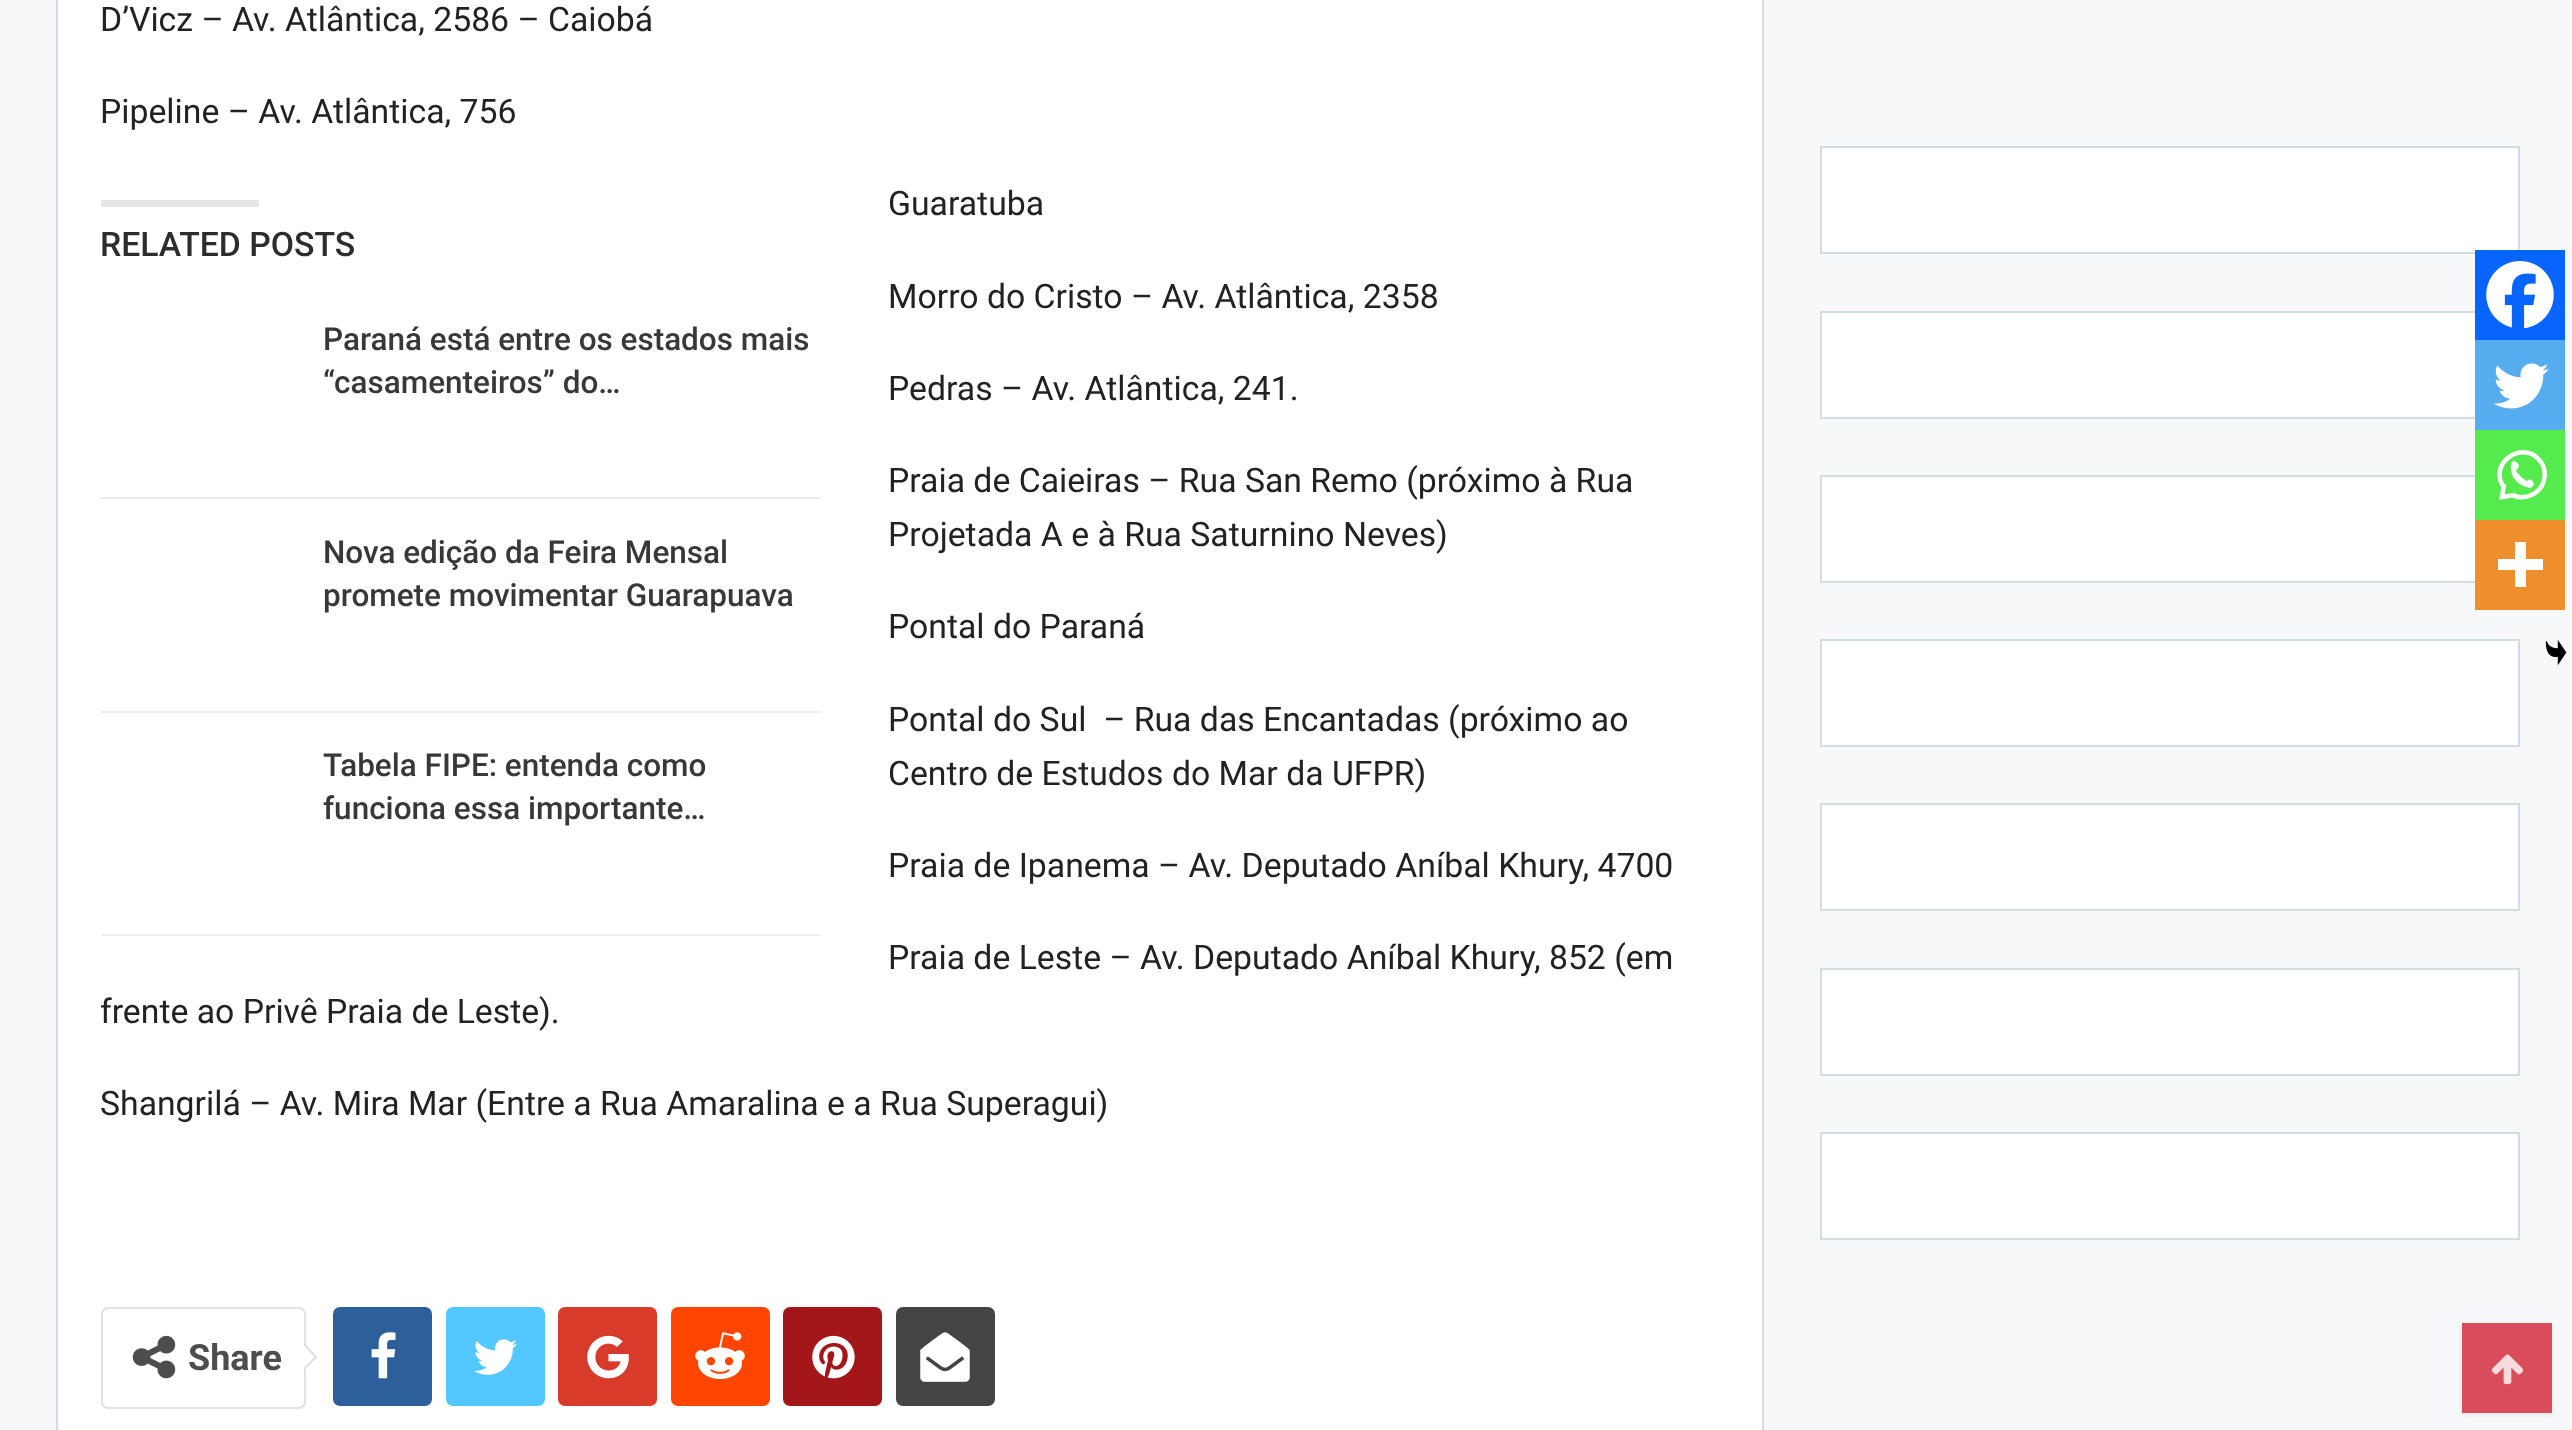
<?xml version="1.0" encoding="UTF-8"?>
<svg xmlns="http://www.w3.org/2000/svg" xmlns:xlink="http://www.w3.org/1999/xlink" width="2572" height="1430">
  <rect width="100%" height="100%" fill="#f6f8fa" />
  <rect x="57" y="-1" width="1706" height="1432" fill="#ffffff" stroke="#d2dce3" stroke-width="2" />
  <rect x="101" y="934" width="720" height="2" fill="#f0f0f0" />
  <rect x="101" y="200" width="158" height="7" fill="#e6e6e6" />
  <rect x="101" y="497" width="720" height="2" fill="#e8edf1" />
  <rect x="101" y="711" width="720" height="2" fill="#e8edf1" />
  <rect x="1821" y="147" width="698" height="106" fill="#ffffff" stroke="#d2dce3" stroke-width="2" />
  <rect x="1822" y="313" width="653" height="104" fill="#ffffff" />
  <rect x="1821" y="312" width="698" height="106" fill="none" stroke="#d2dce3" stroke-width="2" />
  <rect x="2475" y="250" width="90" height="90" fill="#0765fe" />
  <image x="2486" y="261" width="68" height="68" xlink:href="image1.png" />
  <rect x="2475" y="340" width="90" height="90" fill="#55acee" />
  <image x="2493" y="363" width="56" height="46" xlink:href="image2.png" />
  <rect x="1822" y="477" width="653" height="104" fill="#ffffff" />
  <rect x="1821" y="476" width="698" height="106" fill="none" stroke="#d2dce3" stroke-width="2" />
  <rect x="2475" y="430" width="90" height="90" fill="#55eb4c" />
  <path d="M 2514.5 496 c 12 4 25 -2.5 29 -14 c 2 -6.5 1.5 -13.5 -2 -19 c -16.5 -26 -55 0 -37.5 24.5 m 0 -3.5 l -2 13 l 13.5 -2" fill="none" stroke="#ffffff" stroke-width="4.5" />
  <path d="M 2511 463.5 c -1.5 12 4.5 20.5 18 24.5 c 11 -2 0 -13 -2 -6.5 c -6 -4.5 -10 -8.5 -11.5 -11.5 c 9 -4 -2.5 -11 -2.5 -9" fill="#ffffff" />
  <rect x="2475" y="520" width="90" height="90" fill="#ee8e2d" />
  <path d="M 2526 559 v -17 h -11 v 17 h -17 v 11 h 17 v 17 h 11 v -17 h 17 v -11 z" fill="#ffffff" fill-rule="evenodd" />
  <image x="2545" y="639" width="22" height="27" xlink:href="image3.png" />
  <rect x="102" y="1308" width="203" height="100" rx="6" fill="none" stroke="#e2e2e2" stroke-width="2" />
  <image x="132" y="1335" width="44" height="44" xlink:href="image4.png" />
  <path d="M 304 1370 v -27 l 13 14 z" fill="#d7d7d7" />
  <path d="M 304 1368 v -22.5 l 11 11.5 z" fill="#ffffff" />
  <rect x="333" y="1307" width="99" height="99" rx="7" fill="#2d5f9a" />
  <image x="371" y="1332" width="25" height="47" xlink:href="image5.png" />
  <rect x="446" y="1307" width="99" height="99" rx="7" fill="#53c7ff" />
  <image x="473" y="1339" width="45" height="36" xlink:href="image6.png" />
  <rect x="558" y="1307" width="99" height="99" rx="7" fill="#d93b2b" />
  <image x="587" y="1335" width="42" height="44" xlink:href="image7.png" />
  <rect x="671" y="1307" width="99" height="99" rx="7" fill="#ff4500" />
  <image x="695" y="1332" width="50" height="48" xlink:href="image8.png" />
  <rect x="783" y="1307" width="99" height="99" rx="7" fill="#a41719" />
  <image x="812" y="1335" width="43" height="44" xlink:href="image9.png" />
  <rect x="896" y="1307" width="99" height="99" rx="7" fill="#444444" />
  <image x="920" y="1332" width="50" height="50" xlink:href="image10.png" />
  <rect x="1821" y="640" width="698" height="106" fill="#ffffff" stroke="#d2dce3" stroke-width="2" />
  <rect x="1821" y="804" width="698" height="106" fill="#ffffff" stroke="#d2dce3" stroke-width="2" />
  <rect x="1821" y="969" width="698" height="106" fill="#ffffff" stroke="#d2dce3" stroke-width="2" />
  <rect x="1821" y="1133" width="698" height="106" fill="#ffffff" stroke="#d2dce3" stroke-width="2" />
  <rect x="2462" y="1325" width="90" height="90" fill="#313232" fill-opacity="0.09" filter="blur(2px)" />
  <rect x="2462" y="1323" width="90" height="90" fill="#d84c5b" />
  <image x="2491" y="1354" width="33" height="31" xlink:href="image11.png" />
  <text x="100" y="31" style="font-family: Roboto; font-size: 33.75px; fill: #222222">D’Vicz – Av. Atlântica, 2586 – Caiobá</text>
  <text x="100" y="123" style="font-family: Roboto; font-size: 33.75px; fill: #222222">Pipeline – Av. Atlântica, 756</text>
  <text x="888" y="215" style="font-family: Roboto; font-size: 33.75px; fill: #222222">Guaratuba</text>
  <text x="100" y="256" style="font-family: Roboto; font-size: 33.75px; font-weight: 500; fill: #2d2d2d">RELATED POSTS</text>
  <text x="323" y="350" style="font-family: Roboto; font-size: 31.5px; font-weight: 500; fill: #383838">Paraná está entre os estados mais</text>
  <text x="323" y="393" style="font-family: Roboto; font-size: 31.5px; font-weight: 500; fill: #383838">“casamenteiros” do…</text>
  <text x="323" y="563" style="font-family: Roboto; font-size: 31.5px; font-weight: 500; fill: #383838">Nova edição da Feira Mensal</text>
  <text x="323" y="606" style="font-family: Roboto; font-size: 31.5px; font-weight: 500; fill: #383838">promete movimentar Guarapuava</text>
  <text x="323" y="776" style="font-family: Roboto; font-size: 31.5px; font-weight: 500; fill: #383838">Tabela FIPE: entenda como</text>
  <text x="323" y="819" style="font-family: Roboto; font-size: 31.5px; font-weight: 500; fill: #383838">funciona essa importante…</text>
  <text x="888" y="308" style="font-family: Roboto; font-size: 33.75px; fill: #222222">Morro do Cristo – Av. Atlântica, 2358</text>
  <text x="888" y="400" style="font-family: Roboto; font-size: 33.75px; fill: #222222">Pedras – Av. Atlântica, 241.</text>
  <text x="888" y="492" style="font-family: Roboto; font-size: 33.75px; fill: #222222">Praia de Caieiras – Rua San Remo (próximo à Rua</text>
  <text x="888" y="546" style="font-family: Roboto; font-size: 33.75px; fill: #222222">Projetada A e à Rua Saturnino Neves)</text>
  <text x="888" y="638" style="font-family: Roboto; font-size: 33.75px; fill: #222222">Pontal do Paraná</text>
  <text x="888" y="731" style="font-family: Roboto; font-size: 33.75px; fill: #222222" xml:space="preserve">Pontal do Sul  – Rua das Encantadas (próximo ao</text>
  <text x="888" y="785" style="font-family: Roboto; font-size: 33.75px; fill: #222222">Centro de Estudos do Mar da UFPR)</text>
  <text x="888" y="877" style="font-family: Roboto; font-size: 33.75px; fill: #222222">Praia de Ipanema – Av. Deputado Aníbal Khury, 4700</text>
  <text x="888" y="969" style="font-family: Roboto; font-size: 33.75px; fill: #222222">Praia de Leste – Av. Deputado Aníbal Khury, 852 (em</text>
  <text x="100" y="1023" style="font-family: Roboto; font-size: 33.75px; fill: #222222">frente ao Privê Praia de Leste).</text>
  <text x="100" y="1115" style="font-family: Roboto; font-size: 33.75px; fill: #222222">Shangrilá – Av. Mira Mar (Entre a Rua Amaralina e a Rua Superagui)</text>
  <text x="188" y="1370" style="font-family: Roboto; font-size: 36px; font-weight: bold; fill: #4d4d4d">Share</text>
</svg>
